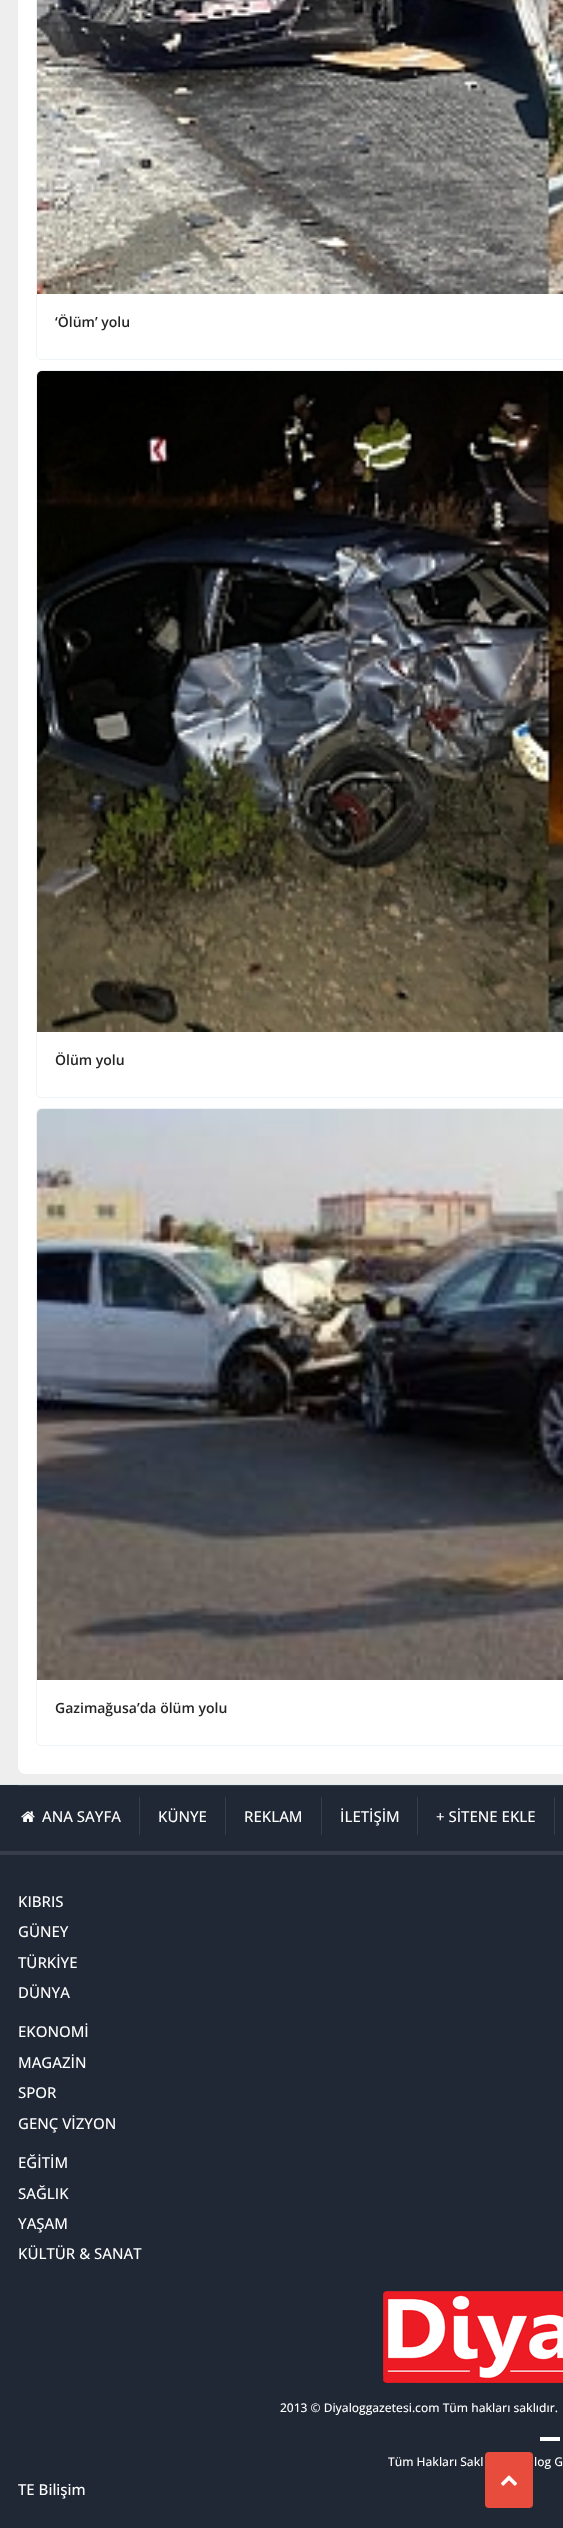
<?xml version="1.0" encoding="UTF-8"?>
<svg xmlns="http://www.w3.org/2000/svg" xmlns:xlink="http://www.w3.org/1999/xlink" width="563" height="2528">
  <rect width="100%" height="100%" fill="#eeeeee" />
  <path d="M 18 -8 h 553 v 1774 c 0 4.5 -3.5 8 -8 8 h -537 c -4.5 0 -8 -3.5 -8 -8 z" fill="#ffffff" />
  <rect x="36.5" y="-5.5" width="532" height="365" rx="4.5" fill="none" stroke="#eef3f7" />
  <image x="37" y="0" width="526" height="294" xlink:href="image1.png" />
  <rect x="36.5" y="370.5" width="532" height="727" rx="4.5" fill="none" stroke="#eef3f7" />
  <image x="37" y="371" width="526" height="661" xlink:href="image2.png" />
  <rect x="36.5" y="1108.5" width="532" height="637" rx="4.5" fill="none" stroke="#eef3f7" />
  <image x="37" y="1109" width="526" height="571" xlink:href="image3.png" />
  <rect y="1785" width="563" height="66" fill="#202735" />
  <rect y="1784" width="563" height="1" fill="#dfe9ee" />
  <rect y="1851" width="563" height="4" fill="#373d4a" />
  <rect x="18" y="1785" width="545" height="1" fill="#363d49" />
  <rect x="139" y="1797" width="1" height="38" fill="#373d4a" />
  <image x="21" y="1811" width="14" height="11" xlink:href="image4.png" />
  <rect x="225" y="1797" width="1" height="38" fill="#373d4a" />
  <rect x="321" y="1797" width="1" height="38" fill="#373d4a" />
  <rect x="417" y="1797" width="1" height="38" fill="#373d4a" />
  <rect x="554" y="1797" width="1" height="38" fill="#373d4a" />
  <rect y="1855" width="563" height="673" fill="#202735" />
  <image x="383" y="2291" width="180" height="92" xlink:href="image5.png" />
  <rect x="540" y="2437" width="20" height="4" fill="#ffffff" />
  <rect x="485" y="2452" width="48" height="56" rx="4" fill="#e74c3c" />
  <image x="500" y="2475" width="18" height="11" xlink:href="image6.png" />
  <text x="55" y="327" style="font-family: Open Sans; font-size: 14px; font-weight: 600; fill: #252525">‘Ölüm’ yolu</text>
  <text x="55" y="1065" style="font-family: Open Sans; font-size: 14px; font-weight: 600; fill: #252525">Ölüm yolu</text>
  <text x="55" y="1713" style="font-family: Open Sans; font-size: 14px; font-weight: 600; fill: #252525">Gazimağusa’da ölüm yolu</text>
  <text x="42" y="1822" style="font-family: Open Sans; font-size: 15px; font-weight: 500; fill: #ffffff">ANA SAYFA</text>
  <text x="158" y="1822" style="font-family: Open Sans; font-size: 15px; font-weight: 500; fill: #ffffff">KÜNYE</text>
  <text x="244" y="1822" style="font-family: Open Sans; font-size: 15px; font-weight: 500; fill: #ffffff">REKLAM</text>
  <text x="340" y="1822" style="font-family: Open Sans; font-size: 15px; font-weight: 500; fill: #ffffff">İLETİŞİM</text>
  <text x="436" y="1822" style="font-family: Open Sans; font-size: 15px; font-weight: 500; fill: #ffffff">+ SİTENE EKLE</text>
  <text x="18" y="1907" style="font-family: Open Sans; font-size: 15px; font-weight: 500; fill: #ffffff">KIBRIS</text>
  <text x="18" y="1937" style="font-family: Open Sans; font-size: 15px; font-weight: 500; fill: #ffffff">GÜNEY</text>
  <text x="18" y="1968" style="font-family: Open Sans; font-size: 15px; font-weight: 500; fill: #ffffff">TÜRKİYE</text>
  <text x="18" y="1998" style="font-family: Open Sans; font-size: 15px; font-weight: 500; fill: #ffffff">DÜNYA</text>
  <text x="18" y="2037" style="font-family: Open Sans; font-size: 15px; font-weight: 500; fill: #ffffff">EKONOMİ</text>
  <text x="18" y="2068" style="font-family: Open Sans; font-size: 15px; font-weight: 500; fill: #ffffff">MAGAZİN</text>
  <text x="18" y="2098" style="font-family: Open Sans; font-size: 15px; font-weight: 500; fill: #ffffff">SPOR</text>
  <text x="18" y="2129" style="font-family: Open Sans; font-size: 15px; font-weight: 500; fill: #ffffff">GENÇ VİZYON</text>
  <text x="18" y="2168" style="font-family: Open Sans; font-size: 15px; font-weight: 500; fill: #ffffff">EĞİTİM</text>
  <text x="18" y="2199" style="font-family: Open Sans; font-size: 15px; font-weight: 500; fill: #ffffff">SAĞLIK</text>
  <text x="18" y="2229" style="font-family: Open Sans; font-size: 15px; font-weight: 500; fill: #ffffff">YAŞAM</text>
  <text x="18" y="2259" style="font-family: Open Sans; font-size: 15px; font-weight: 500; fill: #ffffff">KÜLTÜR &amp; SANAT</text>
  <text x="280" y="2412" style="font-family: Open Sans; font-size: 12px; font-weight: 500; fill: #ffffff">2013 © Diyaloggazetesi.com Tüm hakları saklıdır.</text>
  <text x="388" y="2466" style="font-family: Open Sans; font-size: 12px; font-weight: 500; fill: #ffffff">Tüm Hakları Sakl</text>
  <text x="534" y="2466" style="font-family: Open Sans; font-size: 12px; font-weight: 500; fill: #ffffff">log G</text>
  <text x="18" y="2495" style="font-family: Open Sans; font-size: 15px; font-weight: 500; fill: #ffffff">TE Bilişim</text>
</svg>
